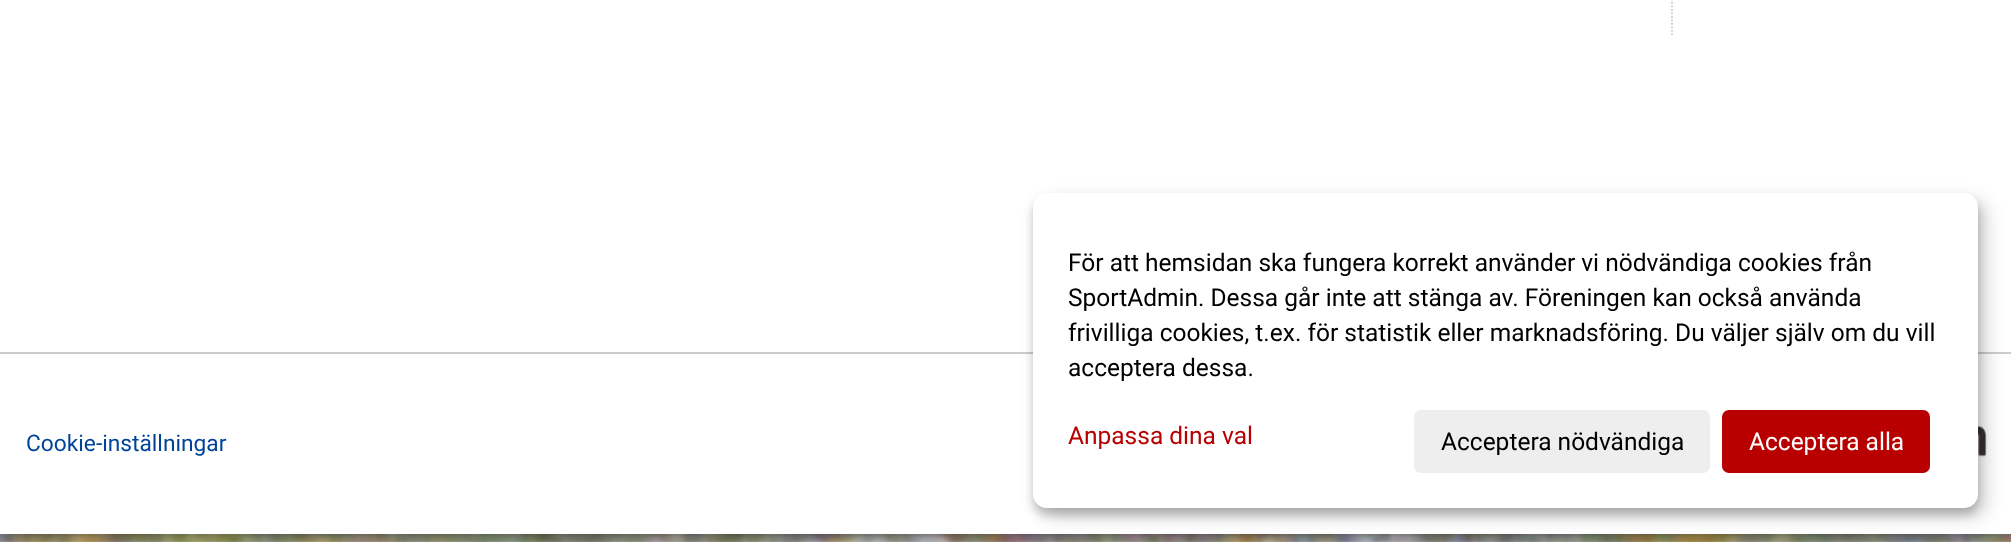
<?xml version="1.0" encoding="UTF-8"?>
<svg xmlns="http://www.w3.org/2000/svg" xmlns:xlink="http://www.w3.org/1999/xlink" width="2011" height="542">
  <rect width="100%" height="100%" fill="#ffffff" />
  <image x="0" y="534" width="2011" height="8" xlink:href="image1.png" />
  <rect y="-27" width="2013" height="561" fill="#333333" filter="blur(9px)" />
  <rect width="2011" height="352" fill="#ffffff" />
  <path d="M 1672 -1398 v 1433" fill="none" stroke="#cccccc" stroke-width="1.8" stroke-dasharray="1.75 1.75" />
  <rect y="354" width="2011" height="180" fill="#ffffff" />
  <rect y="352" width="2011" height="2" fill="#cccccc" />
  <image x="1978" y="425" width="9" height="32" xlink:href="image2.png" />
  <rect x="1041" y="201" width="945" height="315" rx="14" fill="#000000" fill-opacity="0.19" filter="blur(9px)" />
  <rect x="1033" y="200" width="945" height="315" rx="14" fill="#000000" fill-opacity="0.2" filter="blur(5px)" />
  <rect x="1033" y="193" width="945" height="315" rx="14" fill="#ffffff" />
  <rect x="1414" y="410" width="296" height="63" rx="7" fill="#eeeeee" />
  <rect x="1722" y="410" width="208" height="63" rx="7" fill="#b80000" />
  <text x="26" y="451" style="font-family: Roboto; font-size: 22.75px; fill: #004499">Cookie-inställningar</text>
  <text x="1068" y="271" style="font-family: Roboto; font-size: 24.5px; fill: #000000">För att hemsidan ska fungera korrekt använder vi nödvändiga cookies från</text>
  <text x="1068" y="306" style="font-family: Roboto; font-size: 24.5px; fill: #000000">SportAdmin. Dessa går inte att stänga av. Föreningen kan också använda</text>
  <text x="1068" y="341" style="font-family: Roboto; font-size: 24.5px; fill: #000000">frivilliga cookies, t.ex. för statistik eller marknadsföring. Du väljer själv om du vill</text>
  <text x="1068" y="376" style="font-family: Roboto; font-size: 24.5px; fill: #000000">acceptera dessa.</text>
  <text x="1068" y="444" style="font-family: Roboto; font-size: 24.5px; fill: #b80000">Anpassa dina val</text>
  <text x="1441" y="450" style="font-family: Roboto; font-size: 24.5px; fill: #000000">Acceptera nödvändiga</text>
  <text x="1749" y="450" style="font-family: Roboto; font-size: 24.5px; fill: #ffffff">Acceptera alla</text>
</svg>
